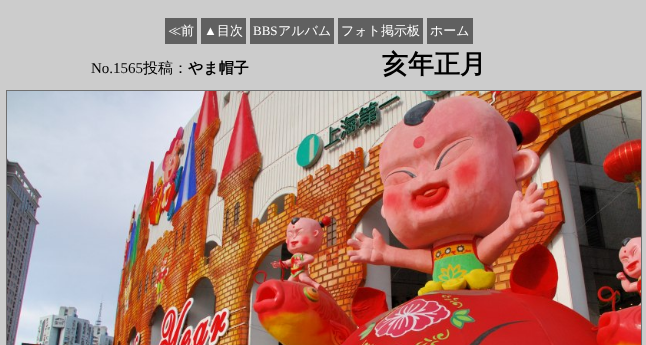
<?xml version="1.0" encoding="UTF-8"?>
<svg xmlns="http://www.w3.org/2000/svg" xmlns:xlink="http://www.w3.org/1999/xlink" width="646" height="345">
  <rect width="100%" height="100%" fill="#cccccc" />
  <rect x="165" y="18" width="32" height="26" fill="#606060" />
  <rect x="201" y="18" width="45" height="26" fill="#606060" />
  <rect x="250" y="18" width="84" height="26" fill="#606060" />
  <rect x="338" y="18" width="85" height="26" fill="#606060" />
  <rect x="427" y="18" width="46" height="26" fill="#606060" />
  <rect x="6.5" y="90.5" width="635" height="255" fill="none" stroke="#707070" />
  <image x="7" y="91" width="634" height="254" xlink:href="image1.png" />
  <text x="168" y="35" style="font-family: WenQuanYi Zen Hei; font-size: 13px; font-weight: 500; fill: #ffffff">≪前</text>
  <text x="204" y="35" style="font-family: Liberation Serif; font-size: 13px; fill: #ffffff">▲</text>
  <text x="217" y="35" style="font-family: WenQuanYi Zen Hei; font-size: 13px; font-weight: 500; fill: #ffffff">目次</text>
  <text x="253" y="35" style="font-family: Liberation Serif; font-size: 13px; fill: #ffffff">BBS</text>
  <text x="278" y="35" style="font-family: WenQuanYi Zen Hei; font-size: 13px; font-weight: 500; fill: #ffffff">アルバム</text>
  <text x="341" y="35" style="font-family: WenQuanYi Zen Hei; font-size: 13px; font-weight: 500; fill: #ffffff">フォト掲示板</text>
  <text x="430" y="35" style="font-family: WenQuanYi Zen Hei; font-size: 13px; font-weight: 500; fill: #ffffff">ホーム</text>
  <text x="91" y="73" style="font-family: Liberation Serif; font-size: 15px; fill: #000000">No.1565</text>
  <text x="143" y="73" style="font-family: WenQuanYi Zen Hei; font-size: 15px; font-weight: 500; fill: #000000">投稿：</text>
  <text x="188" y="73" style="font-family: WenQuanYi Zen Hei; font-size: 15px; font-weight: bold; fill: #000000">やま帽子</text>
  <text x="382" y="73" style="font-family: WenQuanYi Zen Hei; font-size: 26px; font-weight: bold; fill: #000000">亥年正月</text>
</svg>
